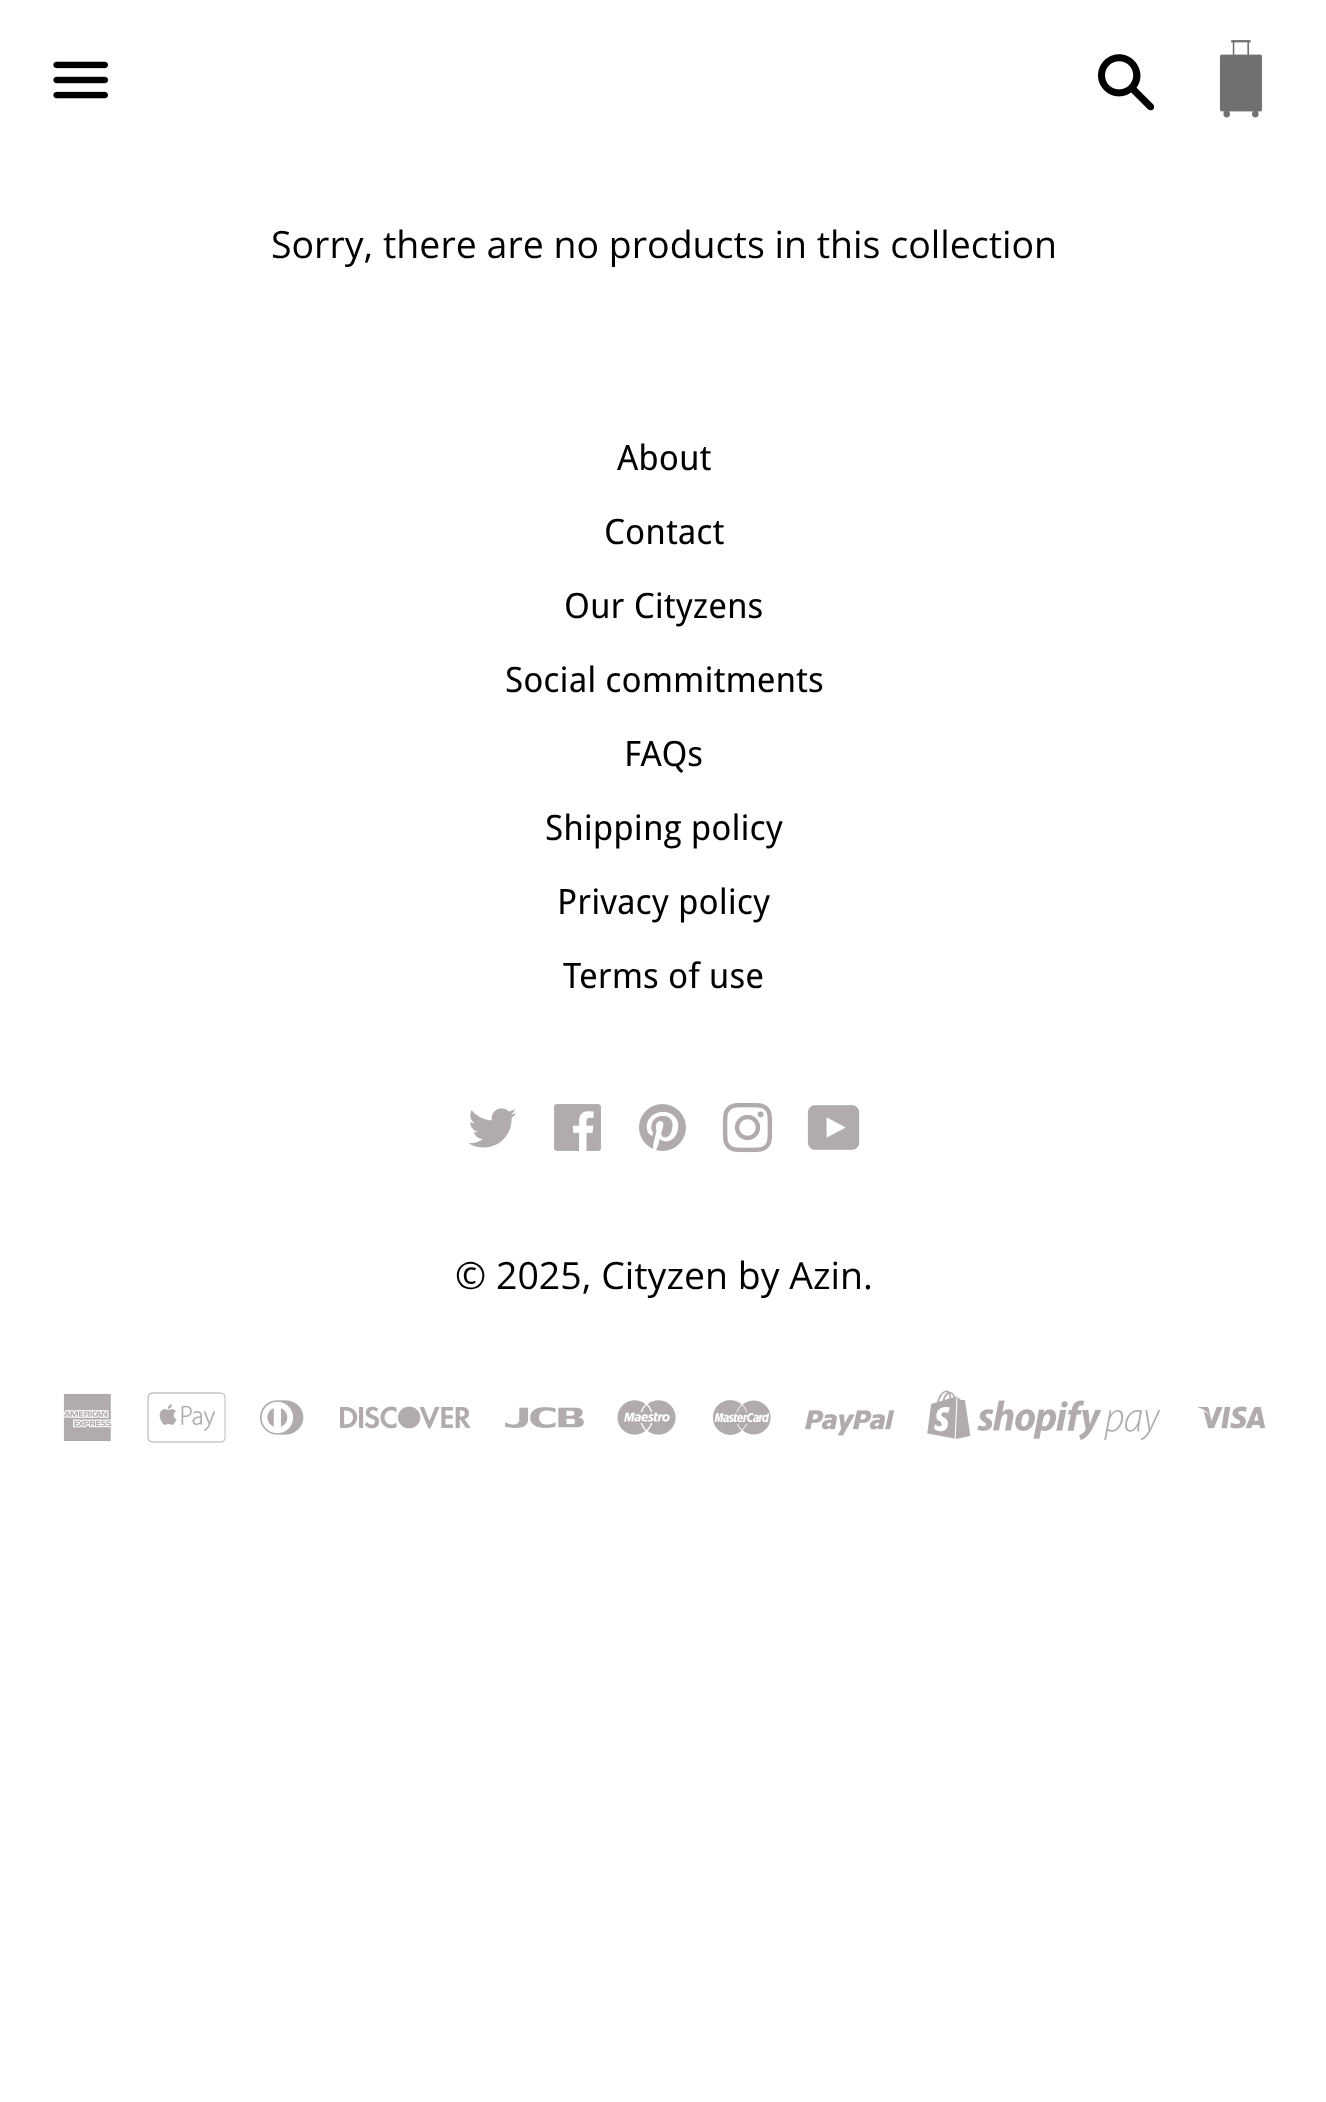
<?xml version="1.0" encoding="UTF-8"?>
<svg xmlns="http://www.w3.org/2000/svg" xmlns:xlink="http://www.w3.org/1999/xlink" width="1326" height="2102">
  <rect width="100%" height="100%" fill="#ffffff" />
  <image x="53" y="61" width="55" height="38" xlink:href="image1.png" />
  <image x="1098" y="54" width="57" height="57" xlink:href="image2.png" />
  <image x="1219" y="40" width="44" height="78" xlink:href="image3.png" />
  <image x="468" y="1108" width="49" height="40" xlink:href="image4.png" />
  <image x="554" y="1104" width="47" height="47" xlink:href="image5.png" />
  <image x="639" y="1104" width="47" height="47" xlink:href="image6.png" />
  <image x="722" y="1102" width="51" height="51" xlink:href="image7.png" />
  <image x="807" y="1105" width="53" height="45" xlink:href="image8.png" />
  <image x="63" y="1393" width="48" height="49" xlink:href="image9.png" />
  <image x="147" y="1392" width="79" height="51" xlink:href="image10.png" />
  <image x="260" y="1400" width="44" height="35" xlink:href="image11.png" />
  <image x="340" y="1406" width="131" height="23" xlink:href="image12.png" />
  <image x="505" y="1407" width="79" height="21" xlink:href="image13.png" />
  <image x="617" y="1400" width="59" height="35" xlink:href="image14.png" />
  <image x="712" y="1400" width="59" height="35" xlink:href="image15.png" />
  <image x="805" y="1410" width="90" height="26" xlink:href="image16.png" />
  <image x="927" y="1390" width="234" height="51" xlink:href="image17.png" />
  <image x="1197" y="1406" width="68" height="23" xlink:href="image18.png" />
  <text x="271" y="258" style="font-family: Open Sans; font-size: 37.5px; fill: #000000">Sorry, there are no products in this collection</text>
  <text x="617" y="470" style="font-family: Droid Sans; font-size: 35px; fill: #000000">About</text>
  <text x="604" y="544" style="font-family: Droid Sans; font-size: 35px; fill: #000000">Contact</text>
  <text x="564" y="618" style="font-family: Droid Sans; font-size: 35px; fill: #000000">Our Cityzens</text>
  <text x="505" y="692" style="font-family: Droid Sans; font-size: 35px; fill: #000000">Social commitments</text>
  <text x="624" y="766" style="font-family: Droid Sans; font-size: 35px; fill: #000000">FAQs</text>
  <text x="545" y="840" style="font-family: Droid Sans; font-size: 35px; fill: #000000">Shipping policy</text>
  <text x="557" y="914" style="font-family: Droid Sans; font-size: 35px; fill: #000000">Privacy policy</text>
  <text x="563" y="988" style="font-family: Droid Sans; font-size: 35px; fill: #000000">Terms of use</text>
  <text x="455" y="1289" style="font-family: Open Sans; font-size: 37.5px; fill: #000000">© 2025, Cityzen by Azin.</text>
</svg>
